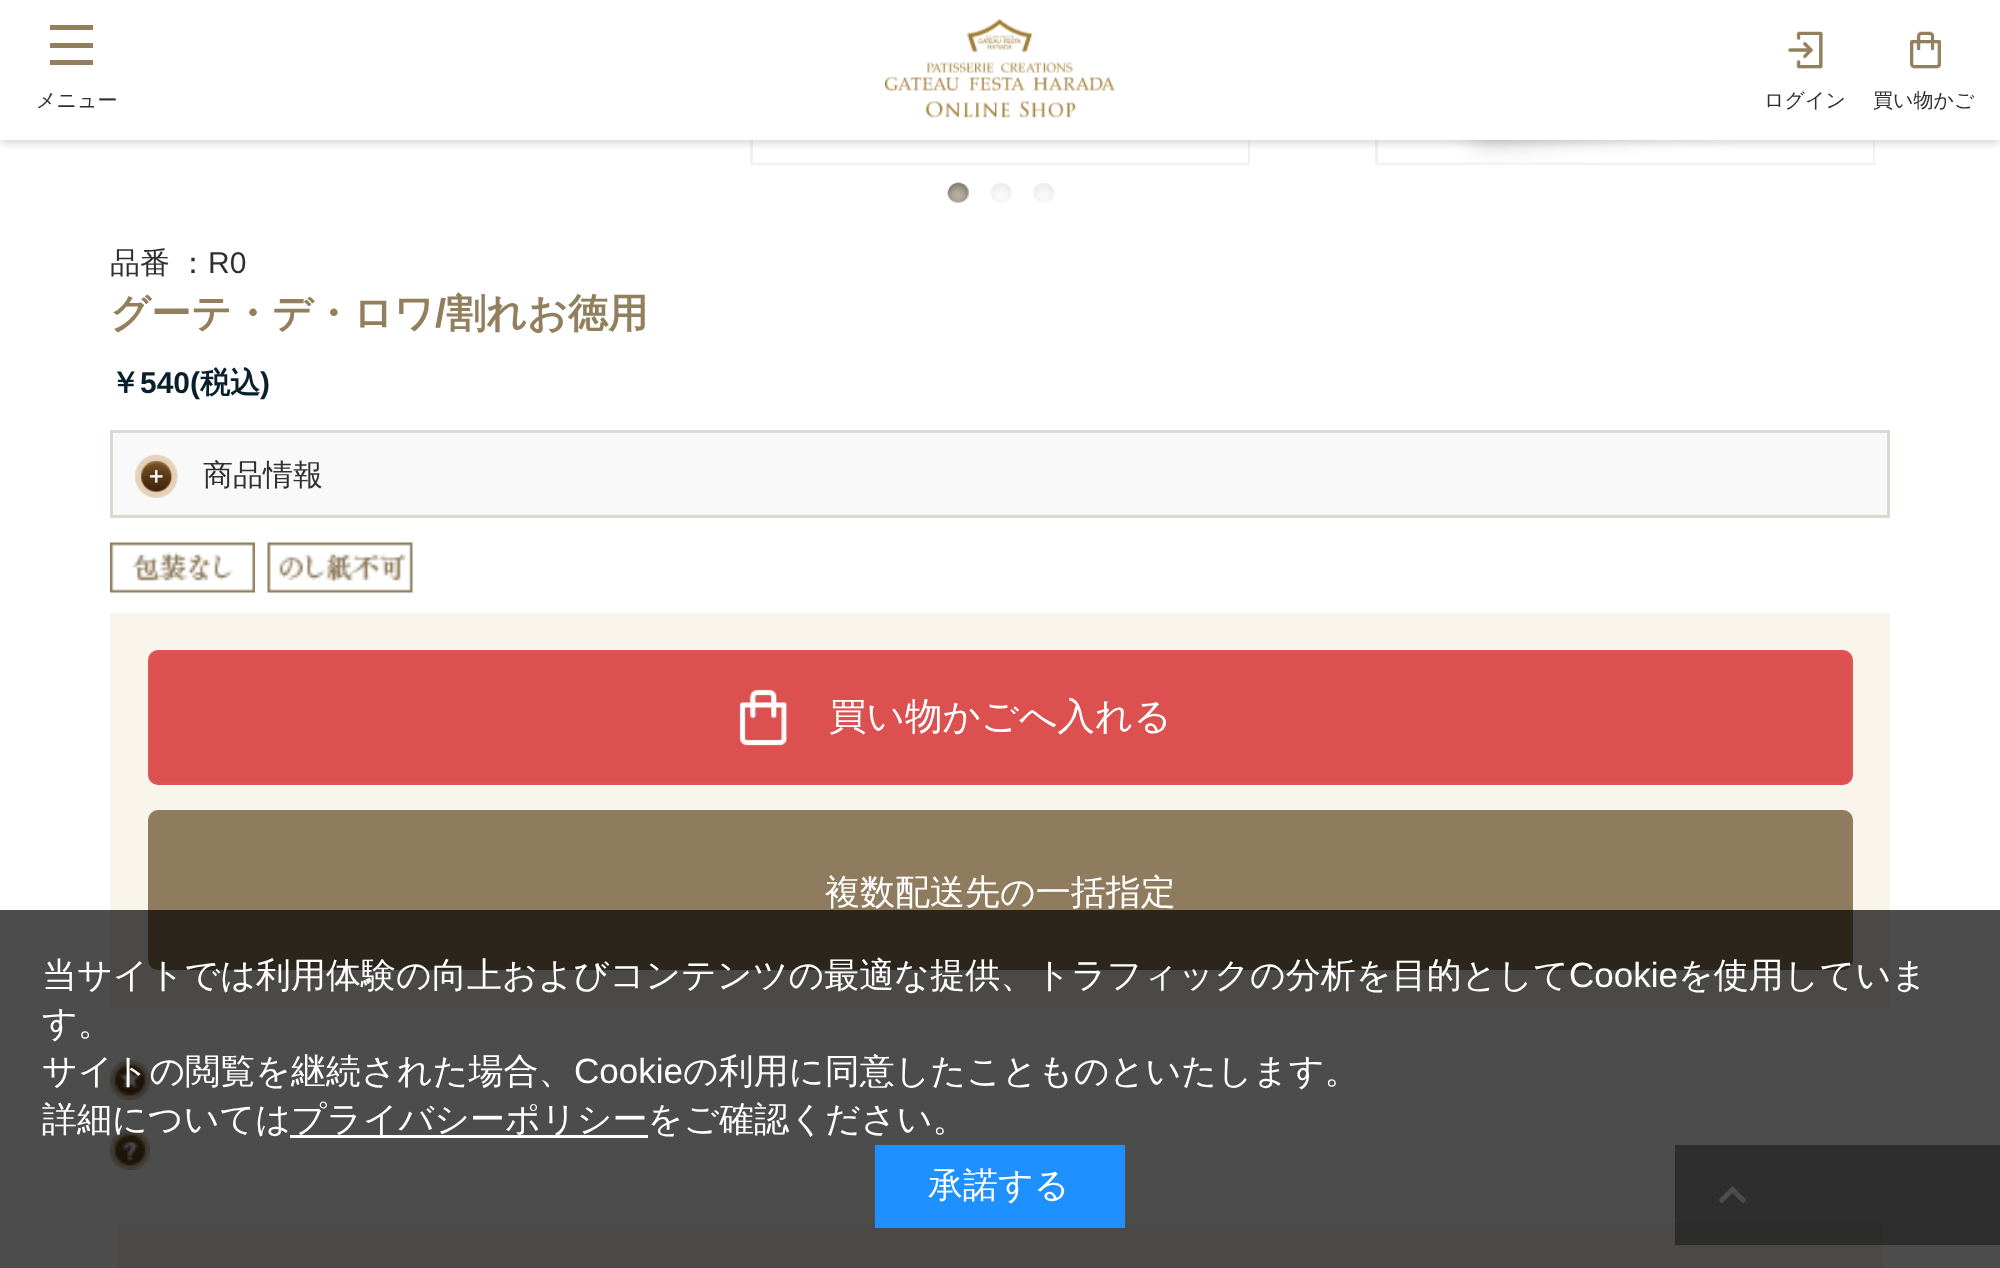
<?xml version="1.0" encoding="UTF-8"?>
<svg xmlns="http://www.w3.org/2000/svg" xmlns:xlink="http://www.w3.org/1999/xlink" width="2000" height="1268">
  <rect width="100%" height="100%" fill="#ffffff" />
  <rect x="1675" y="1145" width="325" height="100" fill="#999999" />
  <rect x="751.5" y="-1.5" width="497" height="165" fill="none" stroke="#f3f1f2" stroke-width="3" />
  <image x="753" y="140" width="495" height="23" xlink:href="image4.png" />
  <rect x="1376.5" y="-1.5" width="497" height="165" fill="none" stroke="#f3f1f2" stroke-width="3" />
  <image x="1378" y="140" width="495" height="23" xlink:href="image5.png" />
  <rect y="3" width="2000" height="140" fill="#000000" fill-opacity="0.16" filter="blur(4px)" />
  <rect width="2000" height="140" fill="#ffffff" />
  <rect x="50" y="25" width="43" height="5" fill="#927f5e" />
  <rect x="50" y="43" width="43" height="5" fill="#927f5e" />
  <rect x="50" y="60" width="43" height="5" fill="#927f5e" />
  <image x="885" y="18" width="230" height="100" xlink:href="image1.png" />
  <image x="1788" y="31" width="35" height="38" xlink:href="image2.png" />
  <image x="1910" y="31" width="32" height="38" xlink:href="image3.png" />
  <image x="947" y="182" width="22" height="21" xlink:href="image6.png" />
  <image x="990" y="183" width="22" height="20" xlink:href="image7.png" />
  <image x="1033" y="183" width="22" height="20" xlink:href="image8.png" />
  <rect x="113" y="433" width="1774" height="82" fill="#f9f9f9" />
  <image x="134" y="454" width="44" height="44" xlink:href="image9.png" />
  <rect x="111.5" y="431.5" width="1777" height="85" fill="none" stroke="#ded8ce" stroke-width="3" />
  <image x="110" y="542" width="145" height="51" xlink:href="image10.png" />
  <image x="267" y="542" width="146" height="51" xlink:href="image11.png" />
  <rect x="110" y="613" width="1780" height="395" fill="#f9f5ed" />
  <rect x="149.5" y="651.5" width="1702" height="132" rx="8.5" fill="#dd5050" stroke="#de5353" stroke-width="3" />
  <image x="739" y="689" width="49" height="57" xlink:href="image12.png" />
  <rect x="148" y="810" width="1705" height="160" rx="10" fill="#8f7c5e" />
  <image x="110" y="1060" width="40" height="40" xlink:href="image13.png" />
  <image x="110" y="1130" width="40" height="40" xlink:href="image14.png" />
  <rect x="118" y="1223" width="1765" height="45" fill="#f9f6f1" />
  <rect x="1675" y="1223" width="208" height="22" fill="#959491" />
  <path d="M 1718.5 1200 l 14 -14 l 3.5 3.5 l -14 14 z" fill="#ffffff" />
  <path d="M 1729 1189.5 l 3.5 -3.5 l 14 14 l -3.5 3.5 z" fill="#ffffff" />
  <rect y="910" width="2000" height="358" fill="#000000" fill-opacity="0.7" />
  <rect x="290" y="1135" width="358" height="3" fill="#ffffff" />
  <rect x="875" y="1145" width="250" height="83" fill="#1e90ff" />
  <text x="36" y="107" style="font-family: WenQuanYi Zen Hei; font-size: 20px; font-weight: 500; fill: #302e2e">メニュー</text>
  <text x="1764" y="107" style="font-family: WenQuanYi Zen Hei; font-size: 20px; font-weight: 500; fill: #302e2e">ログイン</text>
  <text x="1873" y="107" style="font-family: WenQuanYi Zen Hei; font-size: 20px; font-weight: 500; fill: #302e2e">買い物かご</text>
  <text x="110" y="273" style="font-family: WenQuanYi Zen Hei; font-size: 30px; font-weight: 500; fill: #302e2e">品番</text>
  <text x="178" y="273" style="font-family: WenQuanYi Zen Hei; font-size: 30px; font-weight: 500; fill: #302e2e">：</text>
  <text x="208" y="273" style="font-family: Liberation Sans; font-size: 30px; fill: #302e2e">R0</text>
  <text x="110" y="327" style="font-family: WenQuanYi Zen Hei; font-size: 40px; font-weight: bold; fill: #927f5e">グーテ・デ・ロワ</text>
  <text x="435" y="327" style="font-family: Liberation Sans; font-size: 40px; font-weight: bold; fill: #927f5e">/</text>
  <text x="446" y="327" style="font-family: WenQuanYi Zen Hei; font-size: 40px; font-weight: bold; fill: #927f5e">割れお徳用</text>
  <text x="110" y="393" style="font-family: WenQuanYi Zen Hei; font-size: 30px; font-weight: bold; fill: #081f2c">￥</text>
  <text x="140" y="393" style="font-family: Liberation Sans; font-size: 30px; font-weight: bold; fill: #081f2c">540(</text>
  <text x="200" y="393" style="font-family: WenQuanYi Zen Hei; font-size: 30px; font-weight: bold; fill: #081f2c">税込</text>
  <text x="260" y="393" style="font-family: Liberation Sans; font-size: 30px; font-weight: bold; fill: #081f2c">)</text>
  <text x="203" y="485" style="font-family: WenQuanYi Zen Hei; font-size: 30px; font-weight: 500; fill: #302e2e">商品情報</text>
  <text x="829" y="729" style="font-family: WenQuanYi Zen Hei; font-size: 37.5px; font-weight: 500; fill: #ffffff">買い物かごへ入れる</text>
  <text x="825" y="904" style="font-family: WenQuanYi Zen Hei; font-size: 35px; font-weight: 500; fill: #ffffff">複数配送先の一括指定</text>
  <text x="42" y="987" style="font-family: WenQuanYi Zen Hei; font-size: 35px; font-weight: 500; fill: #ffffff">当サイトでは利用体験の向上およびコンテンツの最適な提供、トラフィックの分析を目的として</text>
  <text x="1569" y="987" style="font-family: Liberation Sans; font-size: 35px; fill: #ffffff">Cookie</text>
  <text x="1678" y="987" style="font-family: WenQuanYi Zen Hei; font-size: 35px; font-weight: 500; fill: #ffffff">を使用していま</text>
  <text x="42" y="1035" style="font-family: WenQuanYi Zen Hei; font-size: 35px; font-weight: 500; fill: #ffffff">す。</text>
  <text x="42" y="1083" style="font-family: WenQuanYi Zen Hei; font-size: 35px; font-weight: 500; fill: #ffffff">サイトの閲覧を継続された場合、</text>
  <text x="574" y="1083" style="font-family: Liberation Sans; font-size: 35px; fill: #ffffff">Cookie</text>
  <text x="683" y="1083" style="font-family: WenQuanYi Zen Hei; font-size: 35px; font-weight: 500; fill: #ffffff">の利用に同意したことものといたします。</text>
  <text x="42" y="1131" style="font-family: WenQuanYi Zen Hei; font-size: 35px; font-weight: 500; fill: #ffffff">詳細については</text>
  <text x="291" y="1131" style="font-family: WenQuanYi Zen Hei; font-size: 35px; font-weight: 500; fill: #ffffff">プライバシーポリシーをご確認ください。</text>
  <text x="928" y="1197" style="font-family: WenQuanYi Zen Hei; font-size: 35px; font-weight: 500; fill: #ffffff">承諾する</text>
</svg>
